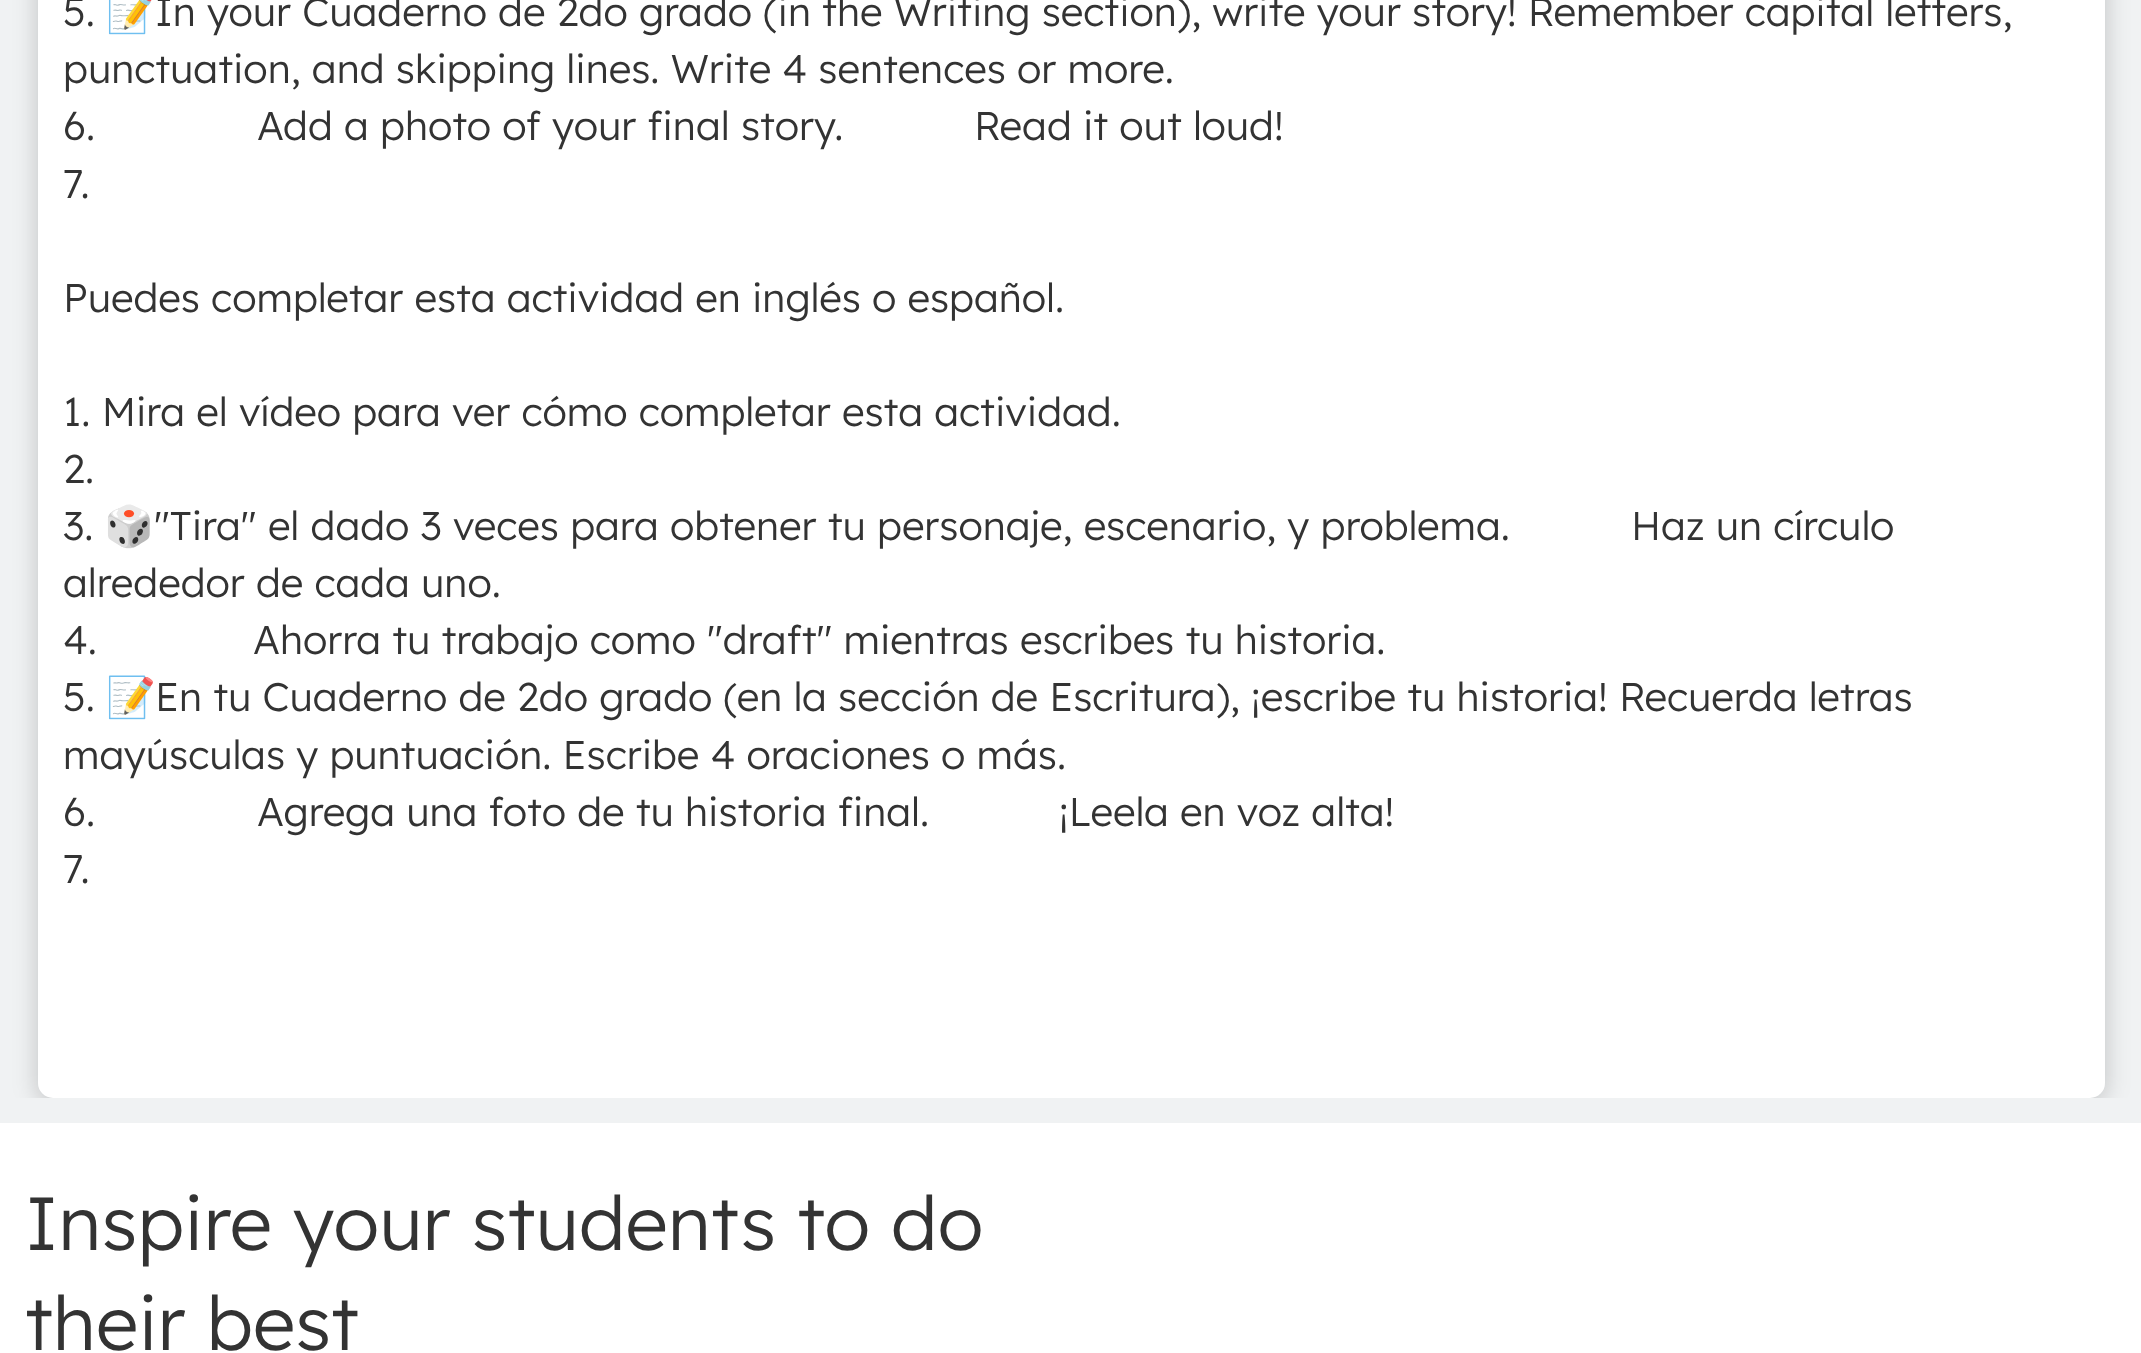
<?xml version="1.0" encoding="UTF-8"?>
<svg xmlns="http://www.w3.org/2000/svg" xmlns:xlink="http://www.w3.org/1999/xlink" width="2141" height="1353">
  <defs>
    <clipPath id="clip1"><rect x="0" y="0" width="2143" height="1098" /></clipPath>
  </defs>
  <rect width="100%" height="100%" fill="#f0f2f3" />
  <rect y="1123" width="2141" height="230" fill="#ffffff" />
  <g clip-path="url(#clip1)">
    <rect x="38" y="-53" width="2067" height="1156" rx="15" fill="#000000" fill-opacity="0.2" filter="blur(12.5px)" />
  </g>
  <rect x="38" y="-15" width="2067" height="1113" rx="15" fill="#ffffff" />
  <text x="63" y="26" style="font-family: Lexend; font-size: 40px; font-weight: 300; fill: #333333">5.</text>
  <text x="106" y="26" style="font-family: Noto Color Emoji; font-size: 40px; fill: #333333">📝</text>
  <text x="155" y="26" style="font-family: Lexend; font-size: 40px; font-weight: 300; fill: #333333">In your Cuaderno de 2do grado (in the Writing section), write your story! Remember capital letters,</text>
  <text x="63" y="83" style="font-family: Lexend; font-size: 40px; font-weight: 300; fill: #333333">punctuation, and skipping lines. Write 4 sentences or more.</text>
  <text x="63" y="140" style="font-family: Lexend; font-size: 40px; font-weight: 300; fill: #333333">6.</text>
  <text x="257" y="140" style="font-family: Lexend; font-size: 40px; font-weight: 300; fill: #333333">Add a photo of your final story.</text>
  <text x="974" y="140" style="font-family: Lexend; font-size: 40px; font-weight: 300; fill: #333333">Read it out loud!</text>
  <text x="63" y="198" style="font-family: Lexend; font-size: 40px; font-weight: 300; fill: #333333">7.</text>
  <text x="63" y="312" style="font-family: Lexend; font-size: 40px; font-weight: 300; fill: #333333">Puedes completar esta actividad en inglés o español.</text>
  <text x="63" y="426" style="font-family: Lexend; font-size: 40px; font-weight: 300; fill: #333333">1. Mira el vídeo para ver cómo completar esta actividad.</text>
  <text x="63" y="483" style="font-family: Lexend; font-size: 40px; font-weight: 300; fill: #333333">2.</text>
  <text x="63" y="540" style="font-family: Lexend; font-size: 40px; font-weight: 300; fill: #333333">3.</text>
  <text x="104" y="540" style="font-family: Noto Color Emoji; font-size: 40px; fill: #333333">🎲</text>
  <text x="154" y="540" style="font-family: Lexend; font-size: 40px; font-weight: 300; fill: #333333">"Tira" el dado 3 veces para obtener tu personaje, escenario, y problema.</text>
  <text x="1631" y="540" style="font-family: Lexend; font-size: 40px; font-weight: 300; fill: #333333">Haz un círculo</text>
  <text x="63" y="597" style="font-family: Lexend; font-size: 40px; font-weight: 300; fill: #333333">alrededor de cada uno.</text>
  <text x="63" y="654" style="font-family: Lexend; font-size: 40px; font-weight: 300; fill: #333333">4.</text>
  <text x="253" y="654" style="font-family: Lexend; font-size: 40px; font-weight: 300; fill: #333333">Ahorra tu trabajo como "draft" mientras escribes tu historia.</text>
  <text x="63" y="711" style="font-family: Lexend; font-size: 40px; font-weight: 300; fill: #333333">5.</text>
  <text x="106" y="711" style="font-family: Noto Color Emoji; font-size: 40px; fill: #333333">📝</text>
  <text x="155" y="711" style="font-family: Lexend; font-size: 40px; font-weight: 300; fill: #333333">En tu Cuaderno de 2do grado (en la sección de Escritura), ¡escribe tu historia! Recuerda letras</text>
  <text x="63" y="769" style="font-family: Lexend; font-size: 40px; font-weight: 300; fill: #333333">mayúsculas y puntuación. Escribe 4 oraciones o más.</text>
  <text x="63" y="826" style="font-family: Lexend; font-size: 40px; font-weight: 300; fill: #333333">6.</text>
  <text x="257" y="826" style="font-family: Lexend; font-size: 40px; font-weight: 300; fill: #333333">Agrega una foto de tu historia final.</text>
  <text x="1059" y="826" style="font-family: Lexend; font-size: 40px; font-weight: 300; fill: #333333">¡Leela en voz alta!</text>
  <text x="63" y="883" style="font-family: Lexend; font-size: 40px; font-weight: 300; fill: #333333">7.</text>
  <text x="25" y="1250" style="font-family: Lexend; font-size: 75px; font-weight: 300; fill: #333333">Inspire your students to do</text>
  <text x="25" y="1350" style="font-family: Lexend; font-size: 75px; font-weight: 300; fill: #333333">their best</text>
</svg>
